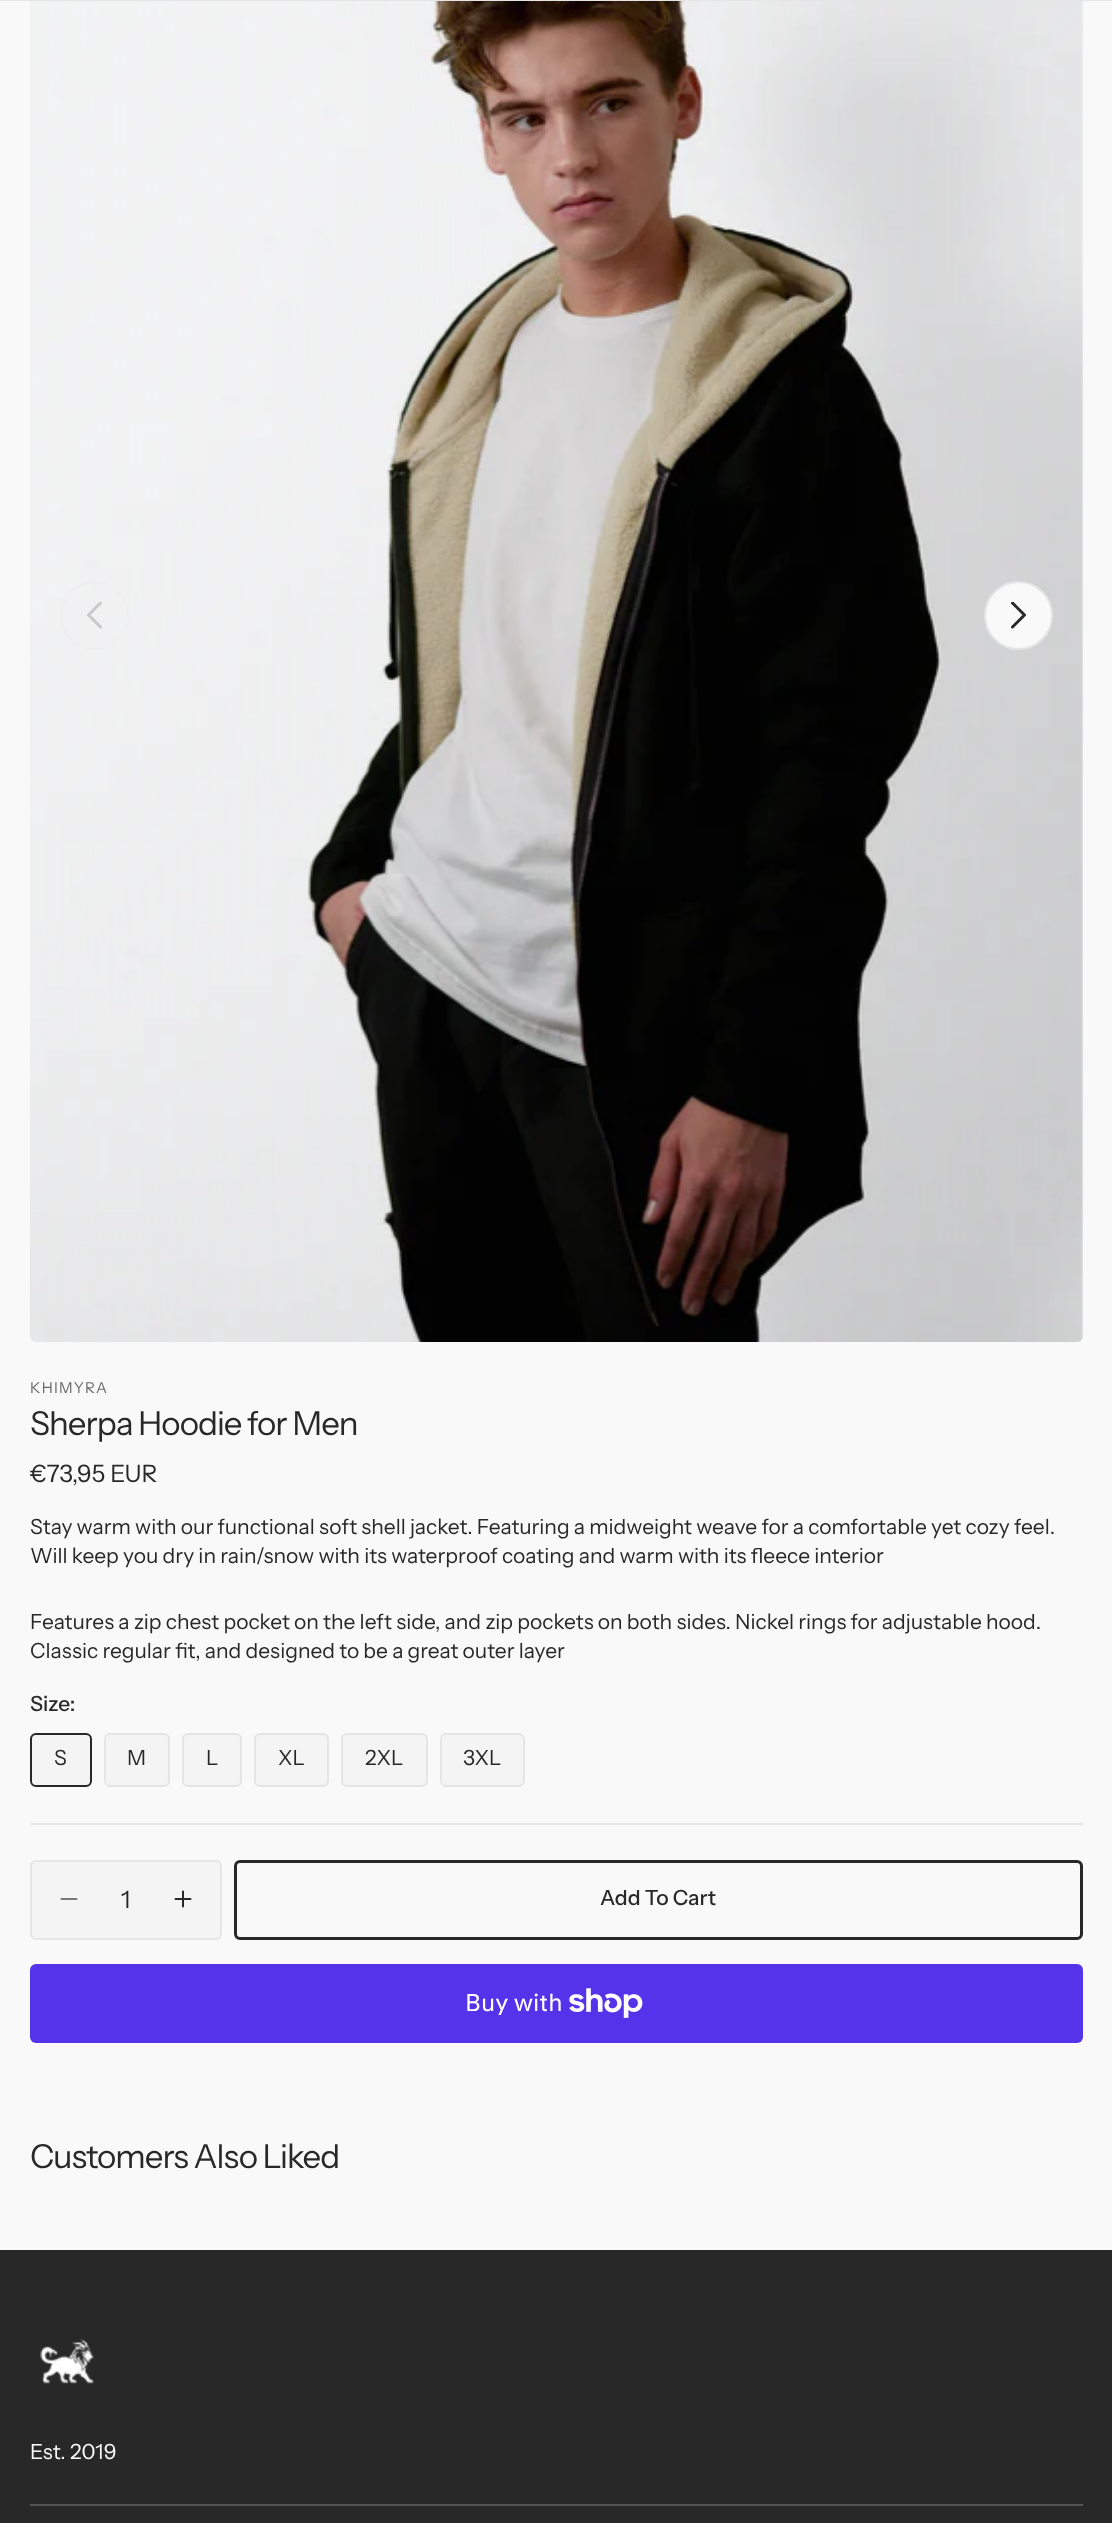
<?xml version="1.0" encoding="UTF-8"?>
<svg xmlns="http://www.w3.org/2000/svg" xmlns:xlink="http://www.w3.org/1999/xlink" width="1112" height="2523">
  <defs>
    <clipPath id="clip1"><rect x="87" y="602" width="15" height="27" /></clipPath>
    <clipPath id="clip2"><rect x="1011" y="602" width="15" height="27" /></clipPath>
  </defs>
  <rect width="100%" height="100%" fill="#f9f9f9" />
  <rect width="1112" height="1" fill="#e5e5e5" />
  <image x="30" y="1" width="1053" height="1341" xlink:href="image1.png" />
  <circle cx="94.5" cy="615.5" r="33.5" fill="none" stroke="#e5e5e5" stroke-opacity="0.2" stroke-width="2" />
  <g clip-path="url(#clip1)">
    <path d="M 100.5 627 l -12 -12 l 12 -12" fill="none" stroke="#c9c9c9" stroke-width="3" stroke-linecap="round" stroke-linejoin="round" />
  </g>
  <circle cx="1018.5" cy="615.5" r="33.5" fill="#f9f9f9" stroke="#e5e5e5" stroke-width="2" />
  <g clip-path="url(#clip2)">
    <path d="M 1012.5 603 l 12 12 l -12 12" fill="none" stroke="#282828" stroke-width="3" stroke-linecap="round" stroke-linejoin="round" />
  </g>
  <rect x="31" y="1734" width="60" height="52" rx="5" fill="#f4f4f4" stroke="#282828" stroke-width="2" />
  <rect x="105" y="1734" width="64" height="52" rx="5" fill="#f4f4f4" stroke="#e5e5e5" stroke-width="2" />
  <rect x="183" y="1734" width="58" height="52" rx="5" fill="#f4f4f4" stroke="#e5e5e5" stroke-width="2" />
  <rect x="255" y="1734" width="73" height="52" rx="5" fill="#f4f4f4" stroke="#e5e5e5" stroke-width="2" />
  <rect x="342" y="1734" width="85" height="52" rx="5" fill="#f4f4f4" stroke="#e5e5e5" stroke-width="2" />
  <rect x="441" y="1734" width="83" height="52" rx="5" fill="#f4f4f4" stroke="#e5e5e5" stroke-width="2" />
  <rect x="30" y="1823" width="1053" height="2" fill="#e5e5e5" />
  <rect x="31" y="1861" width="190" height="78" rx="5" fill="#f4f4f4" stroke="#e5e5e5" stroke-width="2" />
  <path d="M 76.5 1899 h -15" fill="none" stroke="#7a7a7a" stroke-width="2" stroke-linecap="round" />
  <path d="M 190.5 1899 h -15 m 7.5 7.5 v -15" fill="none" stroke="#282828" stroke-width="2" stroke-linecap="round" />
  <rect x="235.5" y="1861.5" width="846" height="77" rx="4.5" fill="none" stroke="#282828" stroke-width="3" />
  <rect x="30" y="1964" width="1053" height="79" rx="6" fill="#5433eb" />
  <image x="569" y="1988" width="74" height="30" xlink:href="image2.png" />
  <rect y="2250" width="1112" height="273" fill="#282828" />
  <image x="40" y="2339" width="54" height="45" xlink:href="image3.png" />
  <rect x="30" y="2504" width="1053" height="2" fill="#525252" />
  <text x="30" y="1393" style="font-family: Instrument Sans; font-size: 15px; letter-spacing: 1.25px; fill: #696969">KHIMYRA</text>
  <text x="30" y="1435" style="font-family: Instrument Sans; font-size: 33px; letter-spacing: -1px; fill: #282828">Sherpa Hoodie for Men</text>
  <text x="30" y="1482" style="font-family: Instrument Sans; font-size: 24px; fill: #282828">€73,95 EUR</text>
  <text x="30" y="1534" style="font-family: Instrument Sans; font-size: 21px; fill: #282828">Stay warm with our functional soft shell jacket. Featuring a midweight weave for a comfortable yet cozy feel.</text>
  <text x="30" y="1563" style="font-family: Instrument Sans; font-size: 21px; fill: #282828">Will keep you dry in rain/snow with its waterproof coating and warm with its fleece interior</text>
  <text x="30" y="1629" style="font-family: Instrument Sans; font-size: 21px; fill: #282828">Features a zip chest pocket on the left side, and zip pockets on both sides. Nickel rings for adjustable hood.</text>
  <text x="30" y="1658" style="font-family: Instrument Sans; font-size: 21px; fill: #282828">Classic regular fit, and designed to be a great outer layer</text>
  <text x="30" y="1711" style="font-family: Instrument Sans; font-size: 21px; font-weight: 500; fill: #282828">Size:</text>
  <text x="54" y="1765" style="font-family: Instrument Sans; font-size: 21px; fill: #282828">S</text>
  <text x="127" y="1765" style="font-family: Instrument Sans; font-size: 21px; fill: #282828">M</text>
  <text x="206" y="1765" style="font-family: Instrument Sans; font-size: 21px; fill: #282828">L</text>
  <text x="278" y="1765" style="font-family: Instrument Sans; font-size: 21px; fill: #282828">XL</text>
  <text x="365" y="1765" style="font-family: Instrument Sans; font-size: 21px; fill: #282828">2XL</text>
  <text x="463" y="1765" style="font-family: Instrument Sans; font-size: 21px; fill: #282828">3XL</text>
  <text x="121" y="1908" style="font-family: Instrument Sans; font-size: 24px; fill: #282828">1</text>
  <text x="600" y="1905" style="font-family: Instrument Sans; font-size: 21px; font-weight: 500; fill: #282828">Add To Cart</text>
  <text x="465" y="2011" style="font-family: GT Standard; font-size: 24px; fill: #ffffff">Buy with</text>
  <text x="30" y="2168" style="font-family: Instrument Sans; font-size: 33px; letter-spacing: -1px; fill: #282828">Customers Also Liked</text>
  <text x="30" y="2459" style="font-family: Instrument Sans; font-size: 21px; fill: #f9f9f9">Est. 2019</text>
</svg>
